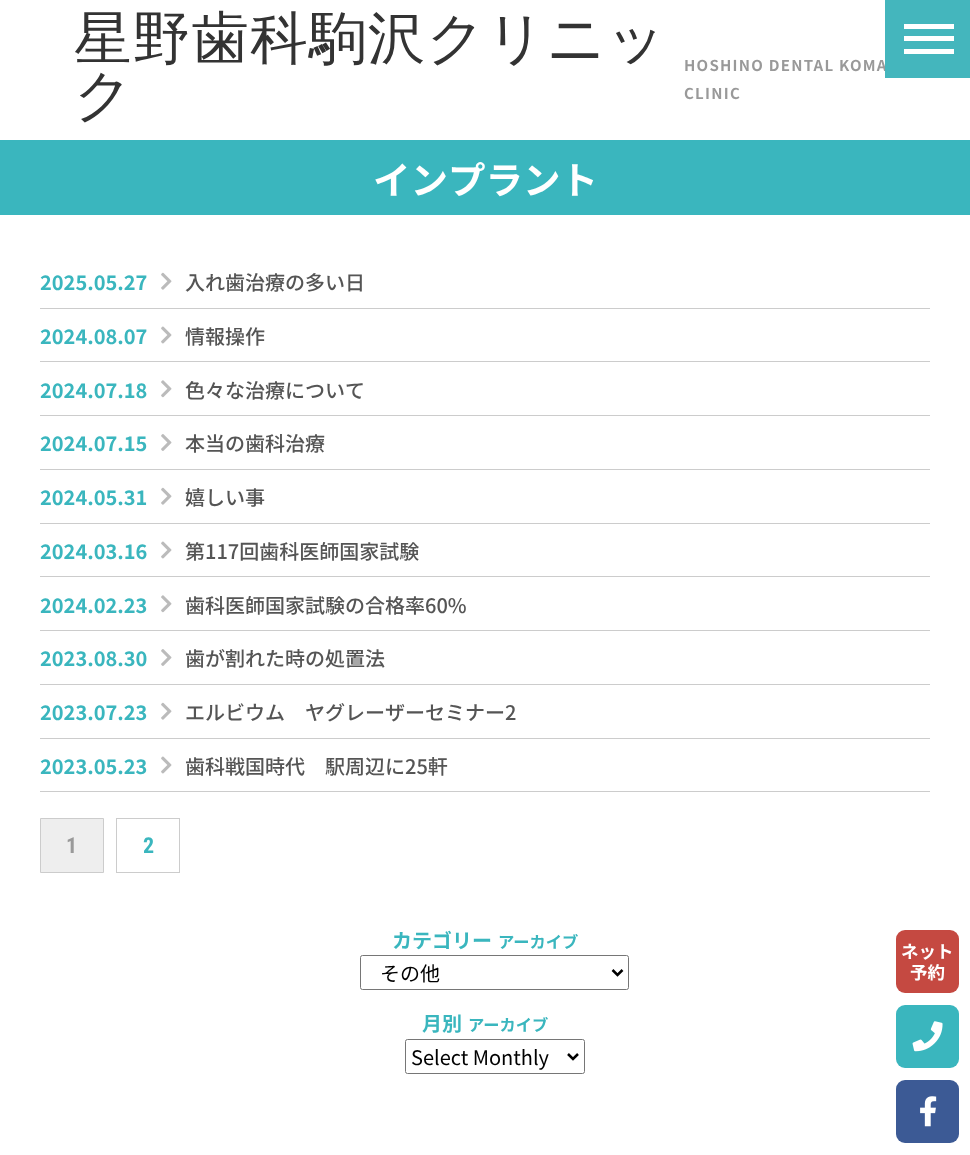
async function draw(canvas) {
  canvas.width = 970
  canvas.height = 1155
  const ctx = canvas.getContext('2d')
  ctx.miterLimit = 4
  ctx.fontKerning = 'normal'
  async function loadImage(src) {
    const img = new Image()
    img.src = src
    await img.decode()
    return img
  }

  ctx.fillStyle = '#fff'
  ctx.fillRect(0, 0, 970, 1155)
  ctx.letterSpacing = '1.25px'
  ctx.font = 'bold 15px Noto Sans JP'
  ctx.fillStyle = '#999'
  ctx.fillText('HOSHINO DENTAL KOMA', 684, 71)
  ctx.fillStyle = '#44b6bd'
  ctx.fillRect(885, 0, 85, 78)
  ctx.fillStyle = '#fff'
  ctx.fillRect(904, 49, 50, 5)
  ctx.fillRect(904, 24, 50, 5)
  ctx.fillRect(904, 36, 50, 5)
  ctx.font = '57.5px Noto Sans'
  ctx.fillStyle = '#333'
  ctx.fillText('星野歯科駒沢クリニッ', 74, 58)
  ctx.fillText('ク', 74, 115)
  ctx.font = 'bold 15px Noto Sans JP'
  ctx.fillStyle = '#999'
  ctx.fillText('CLINIC', 684, 99)
  ctx.fillStyle = '#3ab6be'
  ctx.fillRect(0, 140, 970, 75)
  ctx.letterSpacing = '0px'
  ctx.font = 'bold 37.5px Noto Sans JP'
  ctx.fillStyle = '#fff'
  ctx.fillText('インプラント', 373, 194)
  ctx.fillStyle = '#ccc'
  ctx.fillRect(40, 308, 890, 1)
  ctx.font = 'bold 20px Noto Sans JP'
  ctx.fillStyle = '#3ab6be'
  ctx.fillText('2025.05.27', 40, 290)
  ctx.drawImage(await loadImage('image0.png'), 161, 272, 11, 18)
  ctx.font = '500 20px Noto Sans JP'
  ctx.fillStyle = '#555'
  ctx.fillText('入れ歯治療の多い日', 185, 290)
  ctx.fillStyle = '#ccc'
  ctx.fillRect(40, 361, 890, 1)
  ctx.font = 'bold 20px Noto Sans JP'
  ctx.fillStyle = '#3ab6be'
  ctx.fillText('2024.08.07', 40, 344)
  ctx.drawImage(await loadImage('image1.png'), 161, 326, 11, 18)
  ctx.font = '500 20px Noto Sans JP'
  ctx.fillStyle = '#555'
  ctx.fillText('情報操作', 185, 344)
  ctx.fillStyle = '#ccc'
  ctx.fillRect(40, 415, 890, 1)
  ctx.font = 'bold 20px Noto Sans JP'
  ctx.fillStyle = '#3ab6be'
  ctx.fillText('2024.07.18', 40, 398)
  ctx.drawImage(await loadImage('image2.png'), 161, 380, 11, 18)
  ctx.font = '500 20px Noto Sans JP'
  ctx.fillStyle = '#555'
  ctx.fillText('色々な治療について', 185, 398)
  ctx.fillStyle = '#ccc'
  ctx.fillRect(40, 469, 890, 1)
  ctx.font = 'bold 20px Noto Sans JP'
  ctx.fillStyle = '#3ab6be'
  ctx.fillText('2024.07.15', 40, 451)
  ctx.drawImage(await loadImage('image3.png'), 161, 434, 11, 17)
  ctx.font = '500 20px Noto Sans JP'
  ctx.fillStyle = '#555'
  ctx.fillText('本当の歯科治療', 185, 451)
  ctx.fillStyle = '#ccc'
  ctx.fillRect(40, 523, 890, 1)
  ctx.font = 'bold 20px Noto Sans JP'
  ctx.fillStyle = '#3ab6be'
  ctx.fillText('2024.05.31', 40, 505)
  ctx.drawImage(await loadImage('image0.png'), 161, 487, 11, 18)
  ctx.font = '500 20px Noto Sans JP'
  ctx.fillStyle = '#555'
  ctx.fillText('嬉しい事', 185, 505)
  ctx.fillStyle = '#ccc'
  ctx.fillRect(40, 576, 890, 1)
  ctx.font = 'bold 20px Noto Sans JP'
  ctx.fillStyle = '#3ab6be'
  ctx.fillText('2024.03.16', 40, 559)
  ctx.drawImage(await loadImage('image1.png'), 161, 541, 11, 18)
  ctx.font = '500 20px Noto Sans JP'
  ctx.fillStyle = '#555'
  ctx.fillText('第117回歯科医師国家試験', 185, 559)
  ctx.fillStyle = '#ccc'
  ctx.fillRect(40, 630, 890, 1)
  ctx.font = 'bold 20px Noto Sans JP'
  ctx.fillStyle = '#3ab6be'
  ctx.fillText('2024.02.23', 40, 613)
  ctx.drawImage(await loadImage('image2.png'), 161, 595, 11, 18)
  ctx.font = '500 20px Noto Sans JP'
  ctx.fillStyle = '#555'
  ctx.fillText('歯科医師国家試験の合格率60%', 185, 613)
  ctx.fillStyle = '#ccc'
  ctx.fillRect(40, 684, 890, 1)
  ctx.font = 'bold 20px Noto Sans JP'
  ctx.fillStyle = '#3ab6be'
  ctx.fillText('2023.08.30', 40, 666)
  ctx.drawImage(await loadImage('image3.png'), 161, 649, 11, 17)
  ctx.font = '500 20px Noto Sans JP'
  ctx.fillStyle = '#555'
  ctx.fillText('歯が割れた時の処置法', 185, 666)
  ctx.fillStyle = '#ccc'
  ctx.fillRect(40, 738, 890, 1)
  ctx.font = 'bold 20px Noto Sans JP'
  ctx.fillStyle = '#3ab6be'
  ctx.fillText('2023.07.23', 40, 720)
  ctx.drawImage(await loadImage('image0.png'), 161, 702, 11, 18)
  ctx.font = '500 20px Noto Sans JP'
  ctx.fillStyle = '#555'
  ctx.fillText('エルビウム　ヤグレーザーセミナー2', 185, 720)
  ctx.fillStyle = '#ccc'
  ctx.fillRect(40, 791, 890, 1)
  ctx.font = 'bold 20px Noto Sans JP'
  ctx.fillStyle = '#3ab6be'
  ctx.fillText('2023.05.23', 40, 774)
  ctx.drawImage(await loadImage('image1.png'), 161, 756, 11, 18)
  ctx.font = '500 20px Noto Sans JP'
  ctx.fillStyle = '#555'
  ctx.fillText('歯科戦国時代　駅周辺に25軒', 185, 774)
  ctx.fillStyle = '#eee'
  ctx.beginPath()
  ctx.rect(40.5, 818.5, 63, 54)
  ctx.fill()
  ctx.strokeStyle = '#ccc'
  ctx.stroke()
  ctx.font = 'bold 22px Roboto Condensed'
  ctx.fillStyle = '#999'
  ctx.fillText('1', 66, 853)
  ctx.strokeRect(116.5, 818.5, 63, 54)
  ctx.fillStyle = '#3ab6be'
  ctx.fillText('2', 143, 853)
  ctx.font = 'bold 20px Noto Sans JP'
  ctx.fillText('カテゴリー', 392, 948)
  ctx.font = 'bold 16.25px Noto Sans JP'
  ctx.fillText('アーカイブ', 498, 948)
  ctx.beginPath()
  ctx.roundRect(360.5, 955.5, 268, 34, 2)
  ctx.strokeStyle = '#767676'
  ctx.stroke()
  ctx.beginPath()
  ctx.moveTo(612.5, 970)
  ctx.lineTo(617.5, 975)
  ctx.lineTo(622.5, 970)
  ctx.strokeStyle = '#000'
  ctx.lineWidth = 2.5
  ctx.stroke()
  ctx.font = '20px Noto Sans JP'
  ctx.fillStyle = '#000'
  ctx.fillText('その他', 380, 981)
  ctx.font = 'bold 20px Noto Sans JP'
  ctx.fillStyle = '#3ab6be'
  ctx.fillText('月別', 422, 1031)
  ctx.font = 'bold 16.25px Noto Sans JP'
  ctx.fillText('アーカイブ', 468, 1031)
  ctx.beginPath()
  ctx.roundRect(405.5, 1039.5, 179, 34, 2)
  ctx.strokeStyle = '#767676'
  ctx.lineWidth = 1
  ctx.stroke()
  ctx.beginPath()
  ctx.moveTo(568, 1054)
  ctx.lineTo(573, 1059)
  ctx.lineTo(578, 1054)
  ctx.strokeStyle = '#000'
  ctx.lineWidth = 2.5
  ctx.stroke()
  ctx.font = '20px Noto Sans JP'
  ctx.fillStyle = '#000'
  ctx.fillText('Select Monthly', 411, 1065)
  ctx.fillStyle = '#c54941'
  ctx.beginPath()
  ctx.roundRect(896, 930, 63, 63, 9)
  ctx.fill()
  ctx.font = 'bold 17.5px Noto Sans JP'
  ctx.fillStyle = '#fff'
  ctx.fillText('ネット', 901, 958)
  ctx.fillText('予約', 910, 979)
  ctx.fillStyle = '#3ab6be'
  ctx.beginPath()
  ctx.roundRect(896, 1005, 63, 63, 9)
  ctx.fill()
  ctx.drawImage(await loadImage('image4.png'), 912, 1021, 31, 31)
  ctx.fillStyle = '#3c5a95'
  ctx.beginPath()
  ctx.roundRect(896, 1080, 63, 63, 9)
  ctx.fill()
  ctx.drawImage(await loadImage('image5.png'), 920, 1096, 17, 31)
}

draw(document.querySelector('canvas'))
